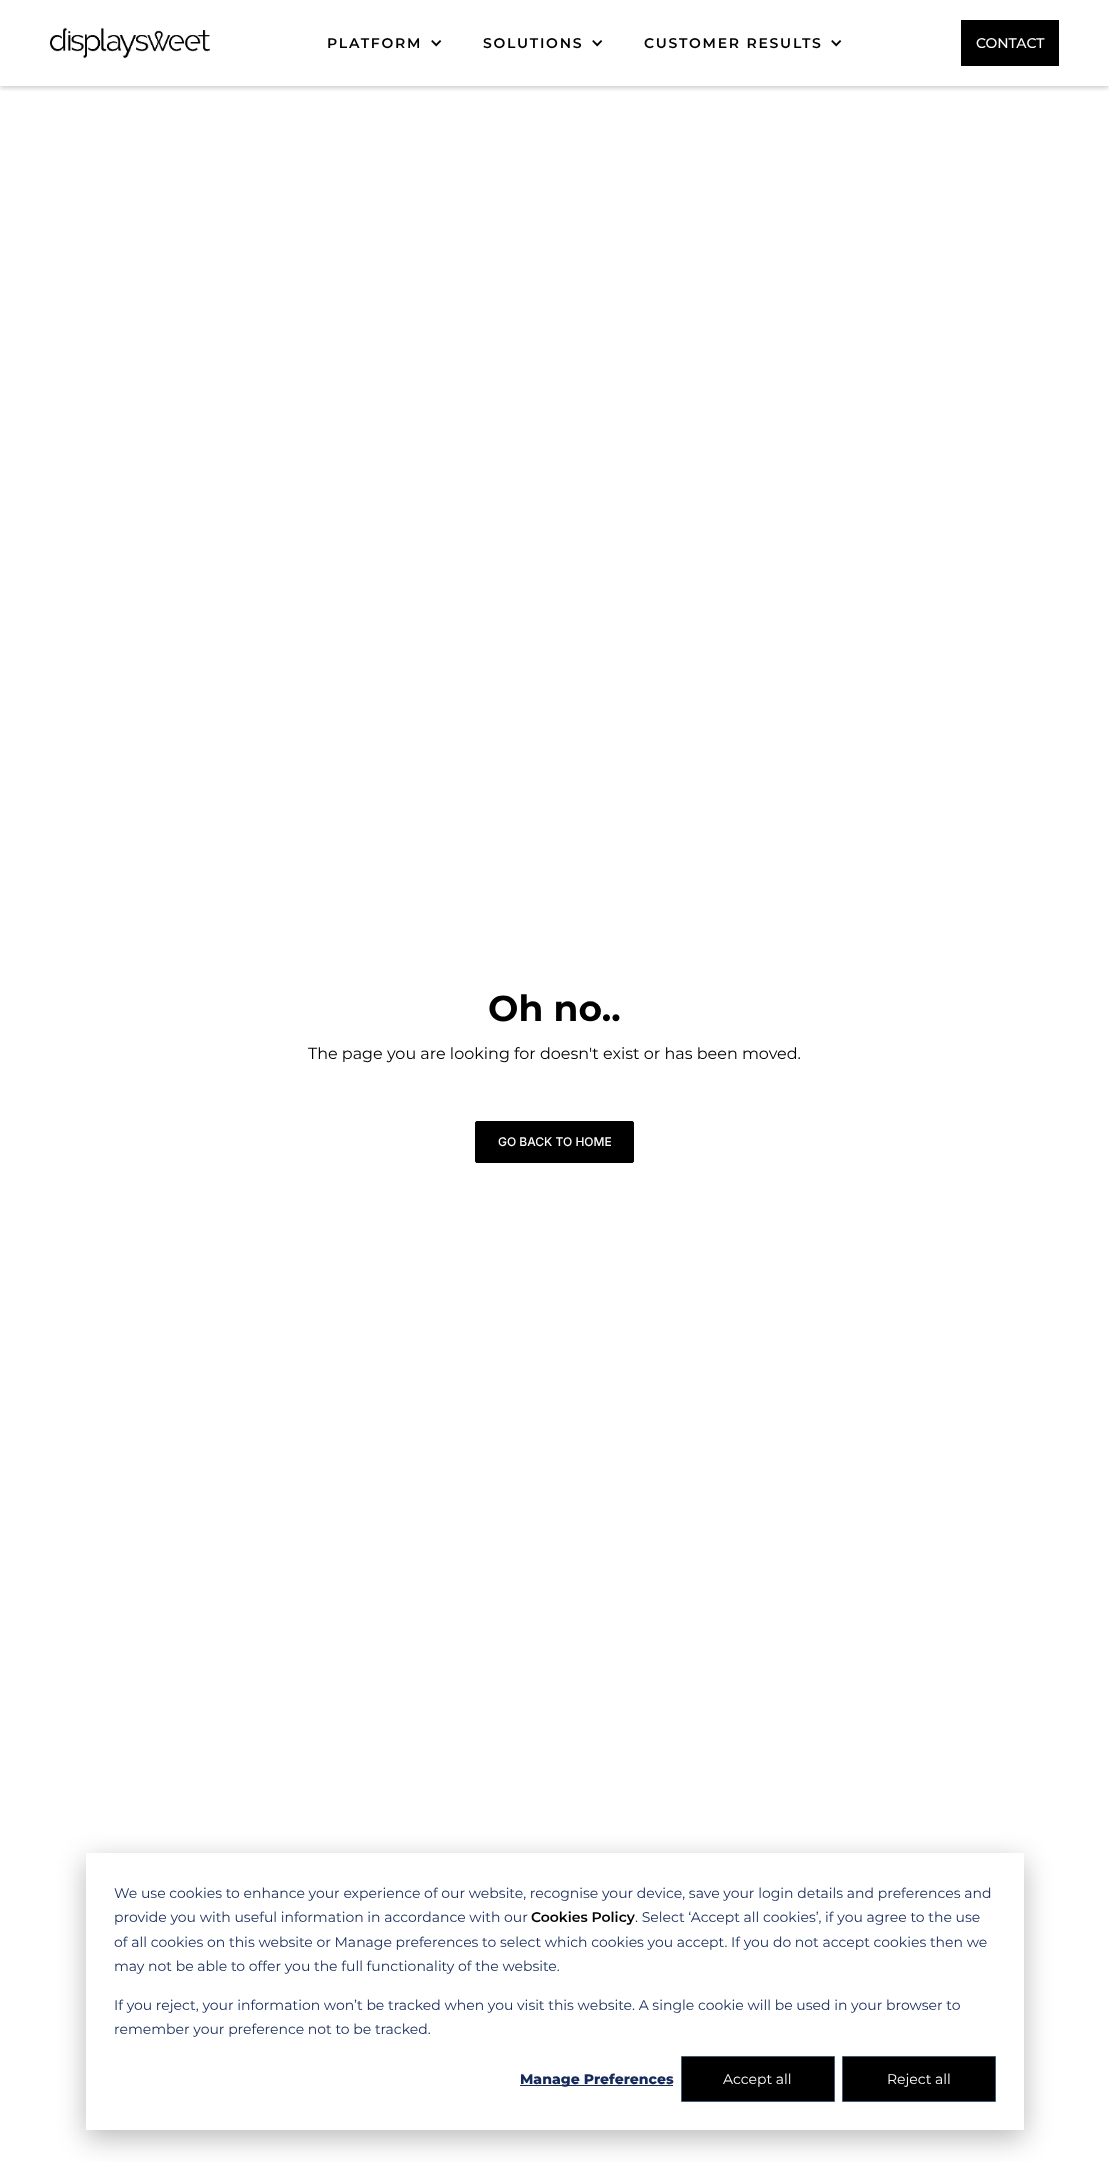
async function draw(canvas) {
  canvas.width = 1109
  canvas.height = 2162
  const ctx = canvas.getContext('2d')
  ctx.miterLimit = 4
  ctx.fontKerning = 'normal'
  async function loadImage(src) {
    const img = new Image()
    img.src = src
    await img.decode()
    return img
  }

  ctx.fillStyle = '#fff'
  ctx.fillRect(0, 0, 1109, 2162)
  ctx.save()
  ctx.beginPath()
  ctx.rect(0, 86, 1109, 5)
  ctx.clip()
  ctx.fillStyle = '#00000033'
  ctx.filter = 'blur(2.5px)'
  ctx.beginPath()
  ctx.rect(0, 2, 1109, 86)
  ctx.fill()
  ctx.filter = 'none'
  ctx.restore()
  ctx.drawImage(await loadImage('image0.png'), 50, 27, 160, 32)
  ctx.letterSpacing = '1.75px'
  ctx.font = '600 14px Montserrat'
  ctx.fillStyle = '#000'
  ctx.fillText('PLATFORM', 327, 48)
  ctx.drawImage(await loadImage('image1.png'), 431, 40, 11, 7)
  ctx.fillText('SOLUTIONS', 483, 48)
  ctx.drawImage(await loadImage('image1.png'), 592, 40, 11, 7)
  ctx.fillText('CUSTOMER RESULTS', 644, 48)
  ctx.drawImage(await loadImage('image1.png'), 831, 40, 11, 7)
  ctx.fillRect(961, 20, 98, 46)
  ctx.letterSpacing = '0px'
  ctx.font = '500 14px Montserrat'
  ctx.fillStyle = '#fff'
  ctx.fillText('CONTACT', 976, 48)
  ctx.font = 'bold 36px Montserrat'
  ctx.fillStyle = '#000'
  ctx.fillText('Oh no..', 488, 1021)
  ctx.font = '16px Montserrat'
  ctx.fillText('The page you are looking for doesn\'t exist or has been moved.', 308, 1059)
  ctx.beginPath()
  ctx.roundRect(475.5, 1121.5, 158, 41, 1.5)
  ctx.fill()
  ctx.strokeStyle = '#000'
  ctx.stroke()
  ctx.font = '500 12px Inter'
  ctx.fillStyle = '#fff'
  ctx.fillText('GO BACK TO HOME', 498, 1146)
  ctx.save()
  ctx.beginPath()
  ctx.moveTo(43, 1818)
  ctx.lineTo(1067, 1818)
  ctx.lineTo(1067, 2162)
  ctx.lineTo(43, 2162)
  ctx.closePath()
  ctx.moveTo(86, 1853)
  ctx.lineTo(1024, 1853)
  ctx.lineTo(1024, 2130)
  ctx.lineTo(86, 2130)
  ctx.closePath()
  ctx.clip('evenodd')
  ctx.fillStyle = '#00000047'
  ctx.filter = 'blur(14px)'
  ctx.beginPath()
  ctx.rect(86, 1861, 938, 277)
  ctx.fill()
  ctx.filter = 'none'
  ctx.restore()
  ctx.font = '14px Montserrat'
  ctx.fillStyle = '#15295a'
  ctx.fillText('We use cookies to enhance your experience of our website, recognise your device, save your login details and preferences and', 114, 1898)
  ctx.fillText('provide you with useful information in accordance with our', 114, 1922)
  ctx.font = '600 14px Montserrat'
  ctx.fillStyle = '#000'
  ctx.fillText('Cookies Policy', 531, 1922)
  ctx.font = '14px Montserrat'
  ctx.fillStyle = '#15295a'
  ctx.fillText('. Select ‘Accept all cookies’, if you agree to the use', 635, 1922)
  ctx.fillText('of all cookies on this website or Manage preferences to select which cookies you accept. If you do not accept cookies then we', 114, 1947)
  ctx.fillText('may not be able to offer you the full functionality of the website.', 114, 1971)
  ctx.fillText('If you reject, your information won’t be tracked when you visit this website. A single cookie will be used in your browser to', 114, 2010)
  ctx.fillText('remember your preference not to be tracked.', 114, 2034)
  ctx.fillRect(520, 2085, 153, 1)
  ctx.font = '800 14px Montserrat'
  ctx.fillText('Manage Preferences', 520, 2084)
  ctx.fillStyle = '#000'
  ctx.beginPath()
  ctx.rect(681.5, 2056.5, 153, 45)
  ctx.fill()
  ctx.strokeStyle = '#425b76'
  ctx.stroke()
  ctx.font = '14px Montserrat'
  ctx.fillStyle = '#fff'
  ctx.fillText('Accept all', 723, 2084)
  ctx.fillStyle = '#000'
  ctx.beginPath()
  ctx.rect(842.5, 2056.5, 153, 45)
  ctx.fill()
  ctx.stroke()
  ctx.fillStyle = '#fff'
  ctx.fillText('Reject all', 887, 2084)
}

draw(document.querySelector('canvas'))
